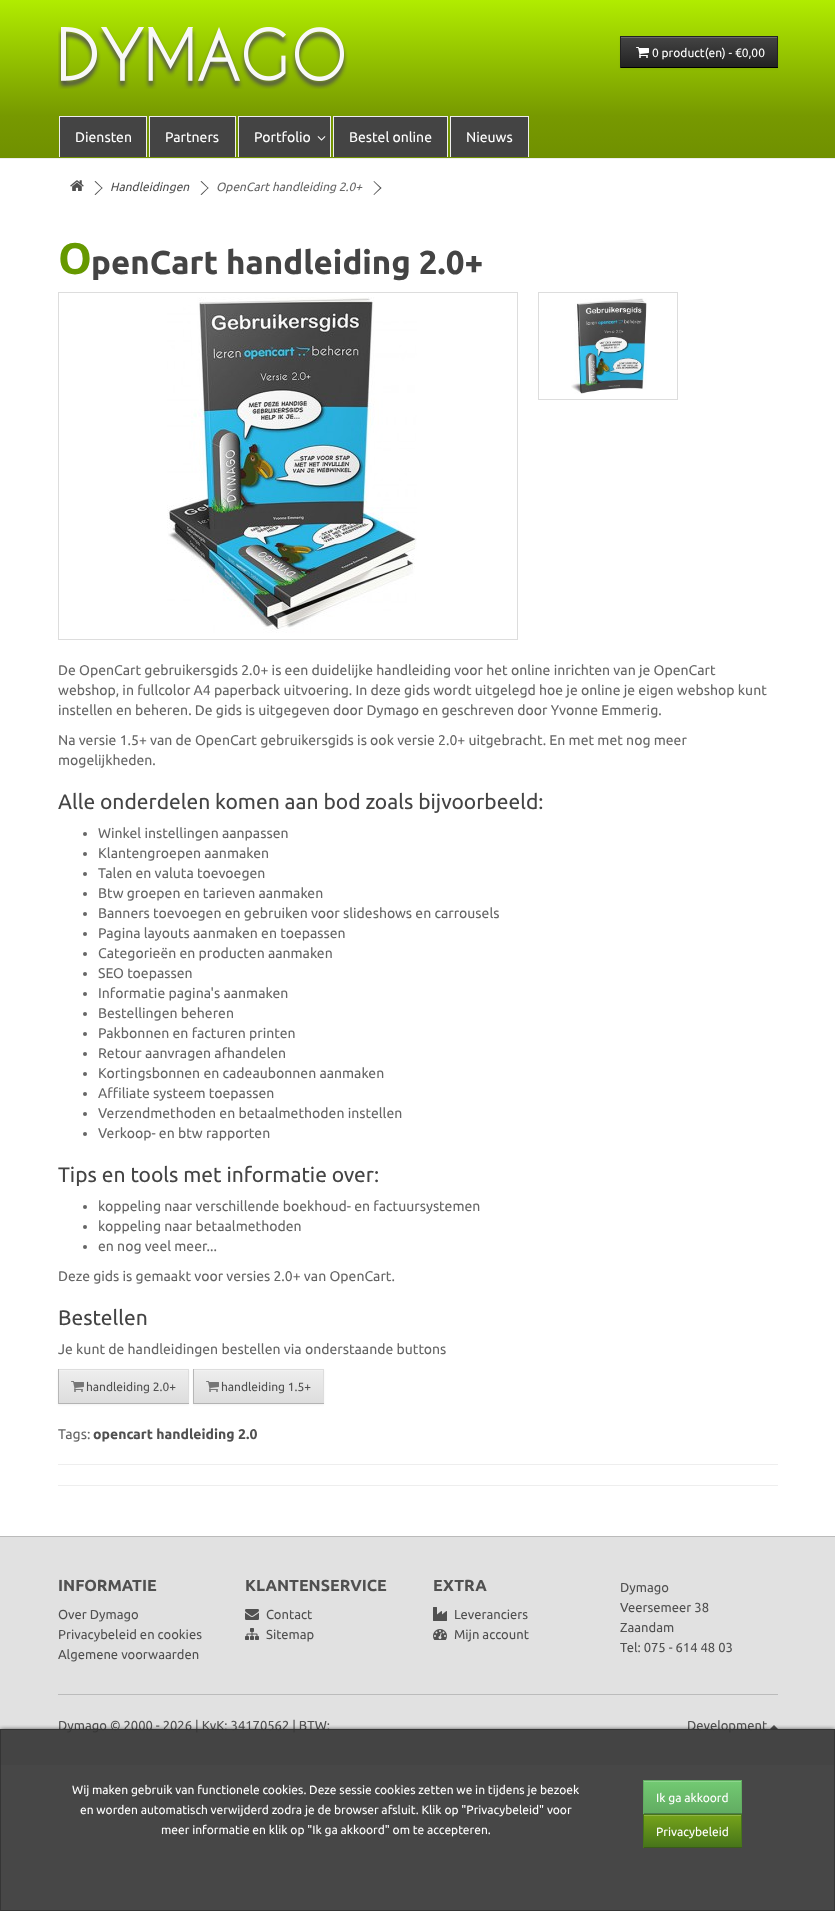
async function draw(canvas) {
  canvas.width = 835
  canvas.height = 1911
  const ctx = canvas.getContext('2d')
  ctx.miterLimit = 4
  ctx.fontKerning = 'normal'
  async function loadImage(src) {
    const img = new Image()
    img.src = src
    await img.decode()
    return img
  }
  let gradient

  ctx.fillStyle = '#fff'
  ctx.fillRect(0, 0, 835, 1911)
  gradient = ctx.createLinearGradient(418, 0, 418, 116)
  gradient.addColorStop(0, '#b1ec00')
  gradient.addColorStop(1, '#790')
  ctx.fillStyle = gradient
  ctx.fillRect(0, 0, 835, 116)
  ctx.drawImage(await loadImage('image0.png'), 58, 27, 290, 62)
  ctx.fillStyle = '#0000000d'
  ctx.filter = 'blur(1px)'
  ctx.beginPath()
  ctx.rect(620, 37, 158, 32)
  ctx.fill()
  ctx.filter = 'none'
  gradient = ctx.createLinearGradient(699, 37, 699, 67)
  gradient.addColorStop(0, '#444')
  gradient.addColorStop(1, '#222')
  ctx.fillStyle = gradient
  ctx.fillRect(621, 38, 156, 29)
  ctx.fillStyle = '#696969'
  ctx.fillRect(621, 37, 156, 1)
  ctx.fillStyle = '#222'
  ctx.fillRect(620, 36, 158, 1)
  ctx.fillRect(777, 36, 1, 32)
  ctx.fillStyle = '#000'
  ctx.fillRect(620, 67, 158, 1)
  ctx.fillStyle = '#222'
  ctx.fillRect(620, 36, 1, 32)
  ctx.drawImage(await loadImage('image1.png'), 636, 47, 13, 11)
  ctx.font = '12px Ubuntu'
  ctx.fillStyle = '#fff'
  ctx.fillText('0 product(en) - €0,00', 652, 57)
  gradient = ctx.createLinearGradient(418, 116, 418, 158)
  gradient.addColorStop(0, '#790')
  gradient.addColorStop(1, '#709000')
  ctx.fillStyle = gradient
  ctx.fillRect(0, 116, 835, 42)
  ctx.fillStyle = '#eee'
  ctx.fillRect(0, 158, 835, 1)
  ctx.fillStyle = '#444'
  ctx.fillRect(60, 117, 86, 40)
  ctx.fillStyle = '#eee'
  ctx.fillRect(59, 116, 88, 1)
  ctx.fillRect(146, 116, 1, 41)
  ctx.fillRect(59, 116, 1, 41)
  ctx.font = '14px Ubuntu'
  ctx.fillStyle = '#fff'
  ctx.fillText('Diensten', 75, 142)
  ctx.fillStyle = '#444'
  ctx.fillRect(150, 117, 85, 40)
  ctx.fillStyle = '#eee'
  ctx.fillRect(149, 116, 87, 1)
  ctx.fillRect(235, 116, 1, 41)
  ctx.fillRect(149, 116, 1, 41)
  ctx.fillStyle = '#fff'
  ctx.fillText('Partners', 165, 142)
  ctx.fillStyle = '#444'
  ctx.fillRect(239, 117, 91, 40)
  ctx.fillStyle = '#eee'
  ctx.fillRect(238, 116, 93, 1)
  ctx.fillRect(330, 116, 1, 41)
  ctx.fillRect(238, 116, 1, 41)
  ctx.fillStyle = '#fff'
  ctx.fillText('Portfolio', 254, 142)
  ctx.drawImage(await loadImage('image2.png'), 317, 136, 9, 5)
  ctx.fillStyle = '#444'
  ctx.fillRect(334, 117, 113, 40)
  ctx.fillStyle = '#eee'
  ctx.fillRect(333, 116, 115, 1)
  ctx.fillRect(447, 116, 1, 41)
  ctx.fillRect(333, 116, 1, 41)
  ctx.fillStyle = '#fff'
  ctx.fillText('Bestel online', 349, 142)
  ctx.fillStyle = '#444'
  ctx.fillRect(451, 117, 77, 40)
  ctx.fillStyle = '#eee'
  ctx.fillRect(450, 116, 79, 1)
  ctx.fillRect(528, 116, 1, 41)
  ctx.fillRect(450, 116, 1, 41)
  ctx.fillStyle = '#fff'
  ctx.fillText('Nieuws', 466, 142)
  ctx.drawImage(await loadImage('image3.png'), 70, 180, 14, 11)
  ctx.fillStyle = '#505050'
  ctx.beginPath()
  ctx.moveTo(94.5, 181.5)
  ctx.lineTo(95.5, 181)
  ctx.lineTo(102.5, 188)
  ctx.lineTo(102, 188.5)
  ctx.closePath()
  ctx.fill()
  ctx.beginPath()
  ctx.moveTo(94.5, 194.5)
  ctx.lineTo(102, 187.5)
  ctx.lineTo(102.5, 188)
  ctx.lineTo(95.5, 195)
  ctx.closePath()
  ctx.fill()
  ctx.font = 'italic 12px Ubuntu'
  ctx.fillText('Handleidingen', 110, 191)
  ctx.beginPath()
  ctx.moveTo(200.5, 181.5)
  ctx.lineTo(201.5, 181)
  ctx.lineTo(208.5, 188)
  ctx.lineTo(208, 188.5)
  ctx.closePath()
  ctx.fill()
  ctx.beginPath()
  ctx.moveTo(200.5, 194.5)
  ctx.lineTo(208, 187.5)
  ctx.lineTo(208.5, 188)
  ctx.lineTo(201.5, 195)
  ctx.closePath()
  ctx.fill()
  ctx.fillStyle = '#666'
  ctx.fillText('OpenCart handleiding 2.0+', 216, 191)
  ctx.fillStyle = '#505050'
  ctx.beginPath()
  ctx.moveTo(373.5, 181.5)
  ctx.lineTo(374, 181)
  ctx.lineTo(381.5, 188)
  ctx.lineTo(380.5, 188.5)
  ctx.closePath()
  ctx.fill()
  ctx.beginPath()
  ctx.moveTo(373.5, 194.5)
  ctx.lineTo(380.5, 187.5)
  ctx.lineTo(381.5, 188)
  ctx.lineTo(374, 195)
  ctx.closePath()
  ctx.fill()
  ctx.font = 'bold 43px Noto Sans'
  ctx.fillStyle = '#690'
  ctx.fillText('O', 58, 274)
  ctx.font = 'bold 33px Ubuntu'
  ctx.fillStyle = '#444'
  ctx.fillText('penCart handleiding 2.0+', 91, 274)
  ctx.strokeStyle = '#ddd'
  ctx.strokeRect(58.5, 292.5, 459, 347)
  ctx.drawImage(await loadImage('image4.png'), 167, 297, 250, 336)
  ctx.strokeRect(538.5, 292.5, 139, 107)
  ctx.drawImage(await loadImage('image5.png'), 571, 298, 76, 96)
  ctx.font = '14px Ubuntu'
  ctx.fillStyle = '#666'
  ctx.fillText('De OpenCart gebruikersgids 2.0+ is een duidelijke handleiding voor het online inrichten van je OpenCart', 58, 675)
  ctx.fillText('webshop, in fullcolor A4 paperback uitvoering. In deze gids wordt uitgelegd hoe je online je eigen webshop kunt', 58, 695)
  ctx.fillText('instellen en beheren. De gids is uitgegeven door Dymago en geschreven door Yvonne Emmerig.', 58, 715)
  ctx.fillText('Na versie 1.5+ van de OpenCart gebruikersgids is ook versie 2.0+ uitgebracht. En met met nog meer', 58, 745)
  ctx.fillText('mogelijkheden.', 58, 765)
  ctx.font = '21px Ubuntu'
  ctx.fillStyle = '#444'
  ctx.fillText('Alle onderdelen komen aan bod zoals bijvoorbeeld:', 58, 809)
  ctx.fillStyle = '#666'
  ctx.beginPath()
  ctx.arc(85, 834, 2, 0, 2 * Math.PI)
  ctx.fill()
  ctx.font = '14px Ubuntu'
  ctx.fillText('Winkel instellingen aanpassen', 98, 838)
  ctx.beginPath()
  ctx.arc(85, 854, 2, 0, 2 * Math.PI)
  ctx.fill()
  ctx.fillText('Klantengroepen aanmaken', 98, 858)
  ctx.beginPath()
  ctx.arc(85, 874, 2, 0, 2 * Math.PI)
  ctx.fill()
  ctx.fillText('Talen en valuta toevoegen', 98, 878)
  ctx.beginPath()
  ctx.arc(85, 894, 2, 0, 2 * Math.PI)
  ctx.fill()
  ctx.fillText('Btw groepen en tarieven aanmaken', 98, 898)
  ctx.beginPath()
  ctx.arc(85, 914, 2, 0, 2 * Math.PI)
  ctx.fill()
  ctx.fillText('Banners toevoegen en gebruiken voor slideshows en carrousels', 98, 918)
  ctx.beginPath()
  ctx.arc(85, 934, 2, 0, 2 * Math.PI)
  ctx.fill()
  ctx.fillText('Pagina layouts aanmaken en toepassen', 98, 938)
  ctx.beginPath()
  ctx.arc(85, 954, 2, 0, 2 * Math.PI)
  ctx.fill()
  ctx.fillText('Categorieën en producten aanmaken', 98, 958)
  ctx.beginPath()
  ctx.arc(85, 974, 2, 0, 2 * Math.PI)
  ctx.fill()
  ctx.fillText('SEO toepassen', 98, 978)
  ctx.beginPath()
  ctx.arc(85, 994, 2, 0, 2 * Math.PI)
  ctx.fill()
  ctx.fillText('Informatie pagina\'s aanmaken', 98, 998)
  ctx.beginPath()
  ctx.arc(85, 1014, 2, 0, 2 * Math.PI)
  ctx.fill()
  ctx.fillText('Bestellingen beheren', 98, 1018)
  ctx.beginPath()
  ctx.arc(85, 1034, 2, 0, 2 * Math.PI)
  ctx.fill()
  ctx.fillText('Pakbonnen en facturen printen', 98, 1038)
  ctx.beginPath()
  ctx.arc(85, 1054, 2, 0, 2 * Math.PI)
  ctx.fill()
  ctx.fillText('Retour aanvragen afhandelen', 98, 1058)
  ctx.beginPath()
  ctx.arc(85, 1074, 2, 0, 2 * Math.PI)
  ctx.fill()
  ctx.fillText('Kortingsbonnen en cadeaubonnen aanmaken', 98, 1078)
  ctx.beginPath()
  ctx.arc(85, 1094, 2, 0, 2 * Math.PI)
  ctx.fill()
  ctx.fillText('Affiliate systeem toepassen', 98, 1098)
  ctx.beginPath()
  ctx.arc(85, 1114, 2, 0, 2 * Math.PI)
  ctx.fill()
  ctx.fillText('Verzendmethoden en betaalmethoden instellen', 98, 1118)
  ctx.beginPath()
  ctx.arc(85, 1134, 2, 0, 2 * Math.PI)
  ctx.fill()
  ctx.fillText('Verkoop- en btw rapporten', 98, 1138)
  ctx.font = '21px Ubuntu'
  ctx.fillStyle = '#444'
  ctx.fillText('Tips en tools met informatie over:', 58, 1182)
  ctx.fillStyle = '#666'
  ctx.beginPath()
  ctx.arc(85, 1207, 2, 0, 2 * Math.PI)
  ctx.fill()
  ctx.font = '14px Ubuntu'
  ctx.fillText('koppeling naar verschillende boekhoud- en factuursystemen', 98, 1211)
  ctx.beginPath()
  ctx.arc(85, 1227, 2, 0, 2 * Math.PI)
  ctx.fill()
  ctx.fillText('koppeling naar betaalmethoden', 98, 1231)
  ctx.beginPath()
  ctx.arc(85, 1247, 2, 0, 2 * Math.PI)
  ctx.fill()
  ctx.fillText('en nog veel meer...', 98, 1251)
  ctx.fillText('Deze gids is gemaakt voor versies 2.0+ van OpenCart.', 58, 1281)
  ctx.font = '21px Ubuntu'
  ctx.fillStyle = '#444'
  ctx.fillText('Bestellen', 58, 1325)
  ctx.font = '14px Ubuntu'
  ctx.fillStyle = '#666'
  ctx.fillText('Je kunt de handleidingen bestellen via onderstaande buttons', 58, 1354)
  ctx.fillStyle = '#0000000d'
  ctx.filter = 'blur(1px)'
  ctx.beginPath()
  ctx.rect(58, 1370, 131, 35)
  ctx.fill()
  ctx.filter = 'none'
  gradient = ctx.createLinearGradient(124, 1370, 124, 1403)
  gradient.addColorStop(0, '#eee')
  gradient.addColorStop(1, '#ddd')
  ctx.fillStyle = gradient
  ctx.fillRect(59, 1371, 129, 32)
  ctx.fillStyle = '#f1f1f1'
  ctx.fillRect(59, 1370, 129, 1)
  ctx.fillStyle = '#ddd'
  ctx.fillRect(58, 1369, 131, 1)
  ctx.fillRect(188, 1369, 1, 35)
  ctx.fillStyle = '#b3b3b3'
  ctx.fillRect(58, 1403, 131, 1)
  ctx.fillStyle = '#b7b7b7'
  ctx.fillRect(58, 1369, 1, 35)
  ctx.drawImage(await loadImage('image6.png'), 71, 1381, 13, 11)
  ctx.font = '12px Ubuntu'
  ctx.fillStyle = '#505050'
  ctx.fillText('handleiding 2.0+', 86, 1391)
  ctx.fillStyle = '#0000000d'
  ctx.filter = 'blur(1px)'
  ctx.beginPath()
  ctx.rect(193, 1370, 131, 35)
  ctx.fill()
  ctx.filter = 'none'
  gradient = ctx.createLinearGradient(259, 1370, 259, 1403)
  gradient.addColorStop(0, '#eee')
  gradient.addColorStop(1, '#ddd')
  ctx.fillStyle = gradient
  ctx.fillRect(194, 1371, 129, 32)
  ctx.fillStyle = '#f1f1f1'
  ctx.fillRect(194, 1370, 129, 1)
  ctx.fillStyle = '#ddd'
  ctx.fillRect(193, 1369, 131, 1)
  ctx.fillRect(323, 1369, 1, 35)
  ctx.fillStyle = '#b3b3b3'
  ctx.fillRect(193, 1403, 131, 1)
  ctx.fillStyle = '#b7b7b7'
  ctx.fillRect(193, 1369, 1, 35)
  ctx.drawImage(await loadImage('image6.png'), 206, 1381, 13, 11)
  ctx.fillStyle = '#505050'
  ctx.fillText('handleiding 1.5+', 221, 1391)
  ctx.font = '14px Ubuntu'
  ctx.fillStyle = '#666'
  ctx.fillText('Tags:', 58, 1439)
  ctx.font = 'bold 14px Ubuntu'
  ctx.fillStyle = '#505050'
  ctx.fillText('opencart handleiding 2.0', 93, 1439)
  ctx.fillStyle = '#eee'
  ctx.fillRect(58, 1464, 720, 1)
  ctx.fillRect(58, 1485, 720, 1)
  ctx.fillStyle = '#e1e1e1'
  ctx.fillRect(0, 1537, 835, 228)
  ctx.fillStyle = '#bbb'
  ctx.fillRect(0, 1536, 835, 1)
  ctx.font = 'bold 16px Ubuntu'
  ctx.fillStyle = '#505050'
  ctx.fillText('INFORMATIE', 58, 1591)
  ctx.font = '13px Ubuntu'
  ctx.fillText('Over Dymago', 58, 1619)
  ctx.fillText('Privacybeleid en cookies', 58, 1639)
  ctx.fillText('Algemene voorwaarden', 58, 1659)
  ctx.font = 'bold 16px Ubuntu'
  ctx.fillText('KLANTENSERVICE', 245, 1591)
  ctx.drawImage(await loadImage('image7.png'), 245, 1609, 14, 11)
  ctx.font = '13px Ubuntu'
  ctx.fillText('Contact', 266, 1619)
  ctx.drawImage(await loadImage('image8.png'), 245, 1628, 14, 12)
  ctx.fillText('Sitemap', 266, 1639)
  ctx.font = 'bold 16px Ubuntu'
  ctx.fillText('EXTRA', 433, 1591)
  ctx.drawImage(await loadImage('image9.png'), 433, 1607, 14, 14)
  ctx.font = '13px Ubuntu'
  ctx.fillText('Leveranciers', 454, 1619)
  ctx.drawImage(await loadImage('image10.png'), 433, 1629, 14, 11)
  ctx.fillText('Mijn account', 454, 1639)
  ctx.fillText('Dymago', 620, 1592)
  ctx.fillText('Veersemeer 38', 620, 1612)
  ctx.fillText('Zaandam', 620, 1632)
  ctx.fillText('Tel: 075 - 614 48 03', 620, 1652)
  ctx.fillStyle = '#bbb'
  ctx.fillRect(58, 1694, 720, 1)
  ctx.fillStyle = '#505050'
  ctx.fillText('Dymago © 2000 - 2026 | KvK: 34170562 | BTW:', 58, 1730)
  ctx.fillText('Development', 687, 1730)
  ctx.beginPath()
  ctx.moveTo(778, 1729)
  ctx.lineTo(770, 1729)
  ctx.lineTo(774, 1725)
  ctx.closePath()
  ctx.fill()
  ctx.save()
  ctx.beginPath()
  ctx.rect(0, 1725, 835, 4)
  ctx.clip()
  ctx.fillStyle = '#000000e6'
  ctx.filter = 'blur(2.5px)'
  ctx.beginPath()
  ctx.rect(0, 1730, 835, 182)
  ctx.fill()
  ctx.filter = 'none'
  ctx.restore()
  ctx.fillStyle = '#333333e6'
  ctx.fillRect(0, 1729, 835, 182)
  ctx.strokeStyle = '#333333e6'
  ctx.strokeRect(0.5, 1729.5, 834, 181)
  ctx.font = '12px Ubuntu'
  ctx.fillStyle = '#fff'
  ctx.fillText('Wij maken gebruik van functionele cookies. Deze sessie cookies zetten we in tijdens je bezoek', 72, 1794)
  ctx.fillText('en worden automatisch verwijderd zodra je de browser afsluit. Klik op "Privacybeleid" voor', 80, 1814)
  ctx.fillText('meer informatie en klik op "Ik ga akkoord" om te accepteren.', 161, 1834)
  gradient = ctx.createLinearGradient(693, 1781, 693, 1813)
  gradient.addColorStop(0, '#72ca72')
  gradient.addColorStop(1, '#62ac62')
  ctx.fillStyle = gradient
  ctx.fillRect(644, 1782, 97, 31)
  ctx.fillStyle = '#8ed58e'
  ctx.fillRect(644, 1781, 97, 1)
  ctx.fillStyle = '#62ac62'
  ctx.fillRect(643, 1780, 99, 1)
  ctx.fillRect(741, 1780, 1, 34)
  ctx.fillStyle = '#4c7e4c'
  ctx.fillRect(643, 1813, 99, 1)
  ctx.fillStyle = '#62ac62'
  ctx.fillRect(643, 1780, 1, 34)
  ctx.fillStyle = '#fff'
  ctx.fillText('Ik ga akkoord', 656, 1802)
  gradient = ctx.createLinearGradient(693, 1815, 693, 1847)
  gradient.addColorStop(0, '#75a31a')
  gradient.addColorStop(1, '#47751a')
  ctx.fillStyle = gradient
  ctx.fillRect(644, 1816, 97, 31)
  ctx.fillStyle = '#90b548'
  ctx.fillRect(644, 1815, 97, 1)
  ctx.fillStyle = '#47751a'
  ctx.fillRect(643, 1814, 99, 1)
  ctx.fillRect(741, 1814, 1, 34)
  ctx.fillStyle = '#3a5b1a'
  ctx.fillRect(643, 1847, 99, 1)
  ctx.fillStyle = '#47751a'
  ctx.fillRect(643, 1814, 1, 34)
  ctx.fillStyle = '#fff'
  ctx.fillText('Privacybeleid', 656, 1836)
}

draw(document.querySelector('canvas'))
